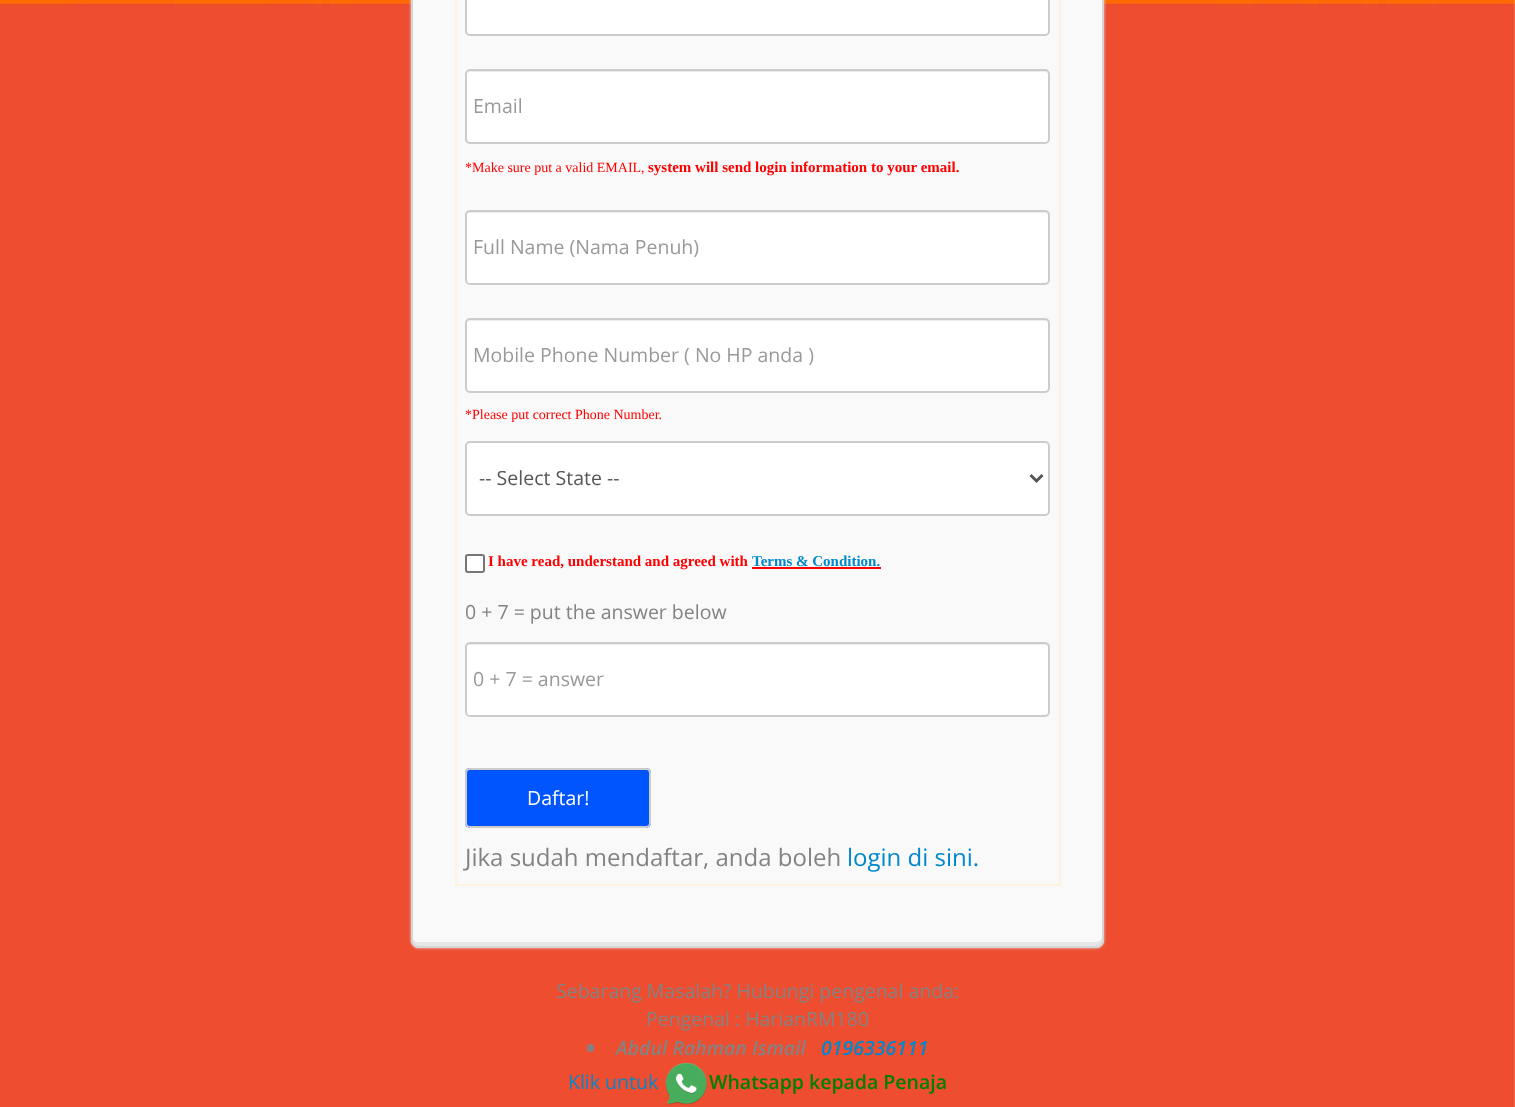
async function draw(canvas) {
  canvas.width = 1515
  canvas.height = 1107
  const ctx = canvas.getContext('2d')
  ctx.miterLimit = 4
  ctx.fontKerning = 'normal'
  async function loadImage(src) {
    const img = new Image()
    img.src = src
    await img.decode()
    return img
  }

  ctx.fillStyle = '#fff'
  ctx.fillRect(0, 0, 1515, 1107)
  ctx.drawImage(await loadImage('image0.png'), 0, 0, 1515, 1107)
  ctx.fillStyle = '#dadada'
  ctx.filter = 'blur(1.5px)'
  ctx.beginPath()
  ctx.roundRect(411, -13, 693, 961, 8)
  ctx.fill()
  ctx.filter = 'none'
  ctx.fillStyle = '#f9f9f9'
  ctx.beginPath()
  ctx.roundRect(411, -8, 693, 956, 8)
  ctx.fill()
  ctx.fillStyle = '#e6e6e6'
  ctx.beginPath()
  ctx.moveTo(413, 939)
  ctx.lineTo(413, 941)
  ctx.bezierCurveTo(413, 944, 416, 947, 419, 947)
  ctx.lineTo(1097, 947)
  ctx.bezierCurveTo(1100, 947, 1103, 944, 1103, 941)
  ctx.lineTo(1103, -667)
  ctx.bezierCurveTo(1103, -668, 1103, -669, 1102, -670)
  ctx.lineTo(1102, 936)
  ctx.bezierCurveTo(1102, 939, 1100, 942, 1096, 942)
  ctx.lineTo(418, 942)
  ctx.bezierCurveTo(416, 942, 414, 941, 413, 939)
  ctx.closePath()
  ctx.fill()
  ctx.beginPath()
  ctx.roundRect(412, -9, 691, 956, 7)
  ctx.strokeStyle = '#d5d5d5'
  ctx.lineWidth = 2
  ctx.stroke()
  ctx.fillStyle = '#fef3dd'
  ctx.fillRect(1059, 0, 2, 885)
  ctx.fillRect(455, 884, 606, 2)
  ctx.fillRect(455, 0, 2, 885)
  ctx.fillStyle = '#fff'
  ctx.beginPath()
  ctx.roundRect(466, -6, 583, 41, 4)
  ctx.fill()
  ctx.strokeStyle = '#ccc'
  ctx.stroke()
  ctx.beginPath()
  ctx.roundRect(465, 69, 585, 75, 5)
  ctx.fill()
  ctx.fillStyle = '#ececec'
  ctx.beginPath()
  ctx.moveTo(470, 72)
  ctx.lineTo(1046, 72)
  ctx.bezierCurveTo(1047, 72, 1048, 73, 1048, 75)
  ctx.lineTo(1048, 142)
  ctx.lineTo(1049, 140)
  ctx.lineTo(1049, 73)
  ctx.bezierCurveTo(1048, 72, 1047, 71, 1046, 71)
  ctx.lineTo(470, 71)
  ctx.bezierCurveTo(469, 71, 468, 72, 467, 73)
  ctx.closePath()
  ctx.fill()
  ctx.beginPath()
  ctx.roundRect(466, 70, 583, 73, 4)
  ctx.stroke()
  ctx.font = '19.5px Open Sans'
  ctx.fillStyle = '#999'
  ctx.fillText('Email', 473, 113)
  ctx.font = '14px Liberation Serif'
  ctx.fillStyle = '#f00'
  ctx.fillText('*Make sure put a valid EMAIL,', 465, 172)
  ctx.font = 'bold 15px Liberation Serif'
  ctx.fillText('system will send login information to your email.', 648, 172)
  ctx.fillStyle = '#fff'
  ctx.beginPath()
  ctx.roundRect(465, 210, 585, 75, 5)
  ctx.fill()
  ctx.fillStyle = '#ececec'
  ctx.beginPath()
  ctx.moveTo(470, 213)
  ctx.lineTo(1046, 213)
  ctx.bezierCurveTo(1047, 213, 1048, 214, 1048, 216)
  ctx.lineTo(1048, 283)
  ctx.lineTo(1049, 281)
  ctx.lineTo(1049, 214)
  ctx.bezierCurveTo(1048, 213, 1047, 212, 1046, 212)
  ctx.lineTo(470, 212)
  ctx.bezierCurveTo(469, 212, 468, 213, 467, 214)
  ctx.closePath()
  ctx.fill()
  ctx.beginPath()
  ctx.roundRect(466, 211, 583, 73, 4)
  ctx.stroke()
  ctx.font = '19.5px Open Sans'
  ctx.fillStyle = '#999'
  ctx.fillText('Full Name (Nama Penuh)', 473, 254)
  ctx.fillStyle = '#fff'
  ctx.beginPath()
  ctx.roundRect(465, 318, 585, 75, 5)
  ctx.fill()
  ctx.fillStyle = '#ececec'
  ctx.beginPath()
  ctx.moveTo(470, 321)
  ctx.lineTo(1046, 321)
  ctx.bezierCurveTo(1047, 321, 1048, 322, 1048, 324)
  ctx.lineTo(1048, 391)
  ctx.lineTo(1049, 389)
  ctx.lineTo(1049, 322)
  ctx.bezierCurveTo(1048, 321, 1047, 320, 1046, 320)
  ctx.lineTo(470, 320)
  ctx.bezierCurveTo(469, 320, 468, 321, 467, 322)
  ctx.closePath()
  ctx.fill()
  ctx.beginPath()
  ctx.roundRect(466, 319, 583, 73, 4)
  ctx.stroke()
  ctx.fillStyle = '#999'
  ctx.fillText('Mobile Phone Number ( No HP anda )', 473, 362)
  ctx.font = '14px Liberation Serif'
  ctx.fillStyle = '#f00'
  ctx.fillText('*Please put correct Phone Number.', 465, 419)
  ctx.fillStyle = '#fff'
  ctx.beginPath()
  ctx.roundRect(466, 442, 583, 73, 4)
  ctx.fill()
  ctx.stroke()
  ctx.beginPath()
  ctx.moveTo(1030.5, 475)
  ctx.lineTo(1036.5, 481)
  ctx.lineTo(1042.5, 475)
  ctx.strokeStyle = '#555'
  ctx.lineWidth = 3
  ctx.stroke()
  ctx.font = '19.5px Open Sans'
  ctx.fillStyle = '#555'
  ctx.fillText('-- Select State --', 479, 485)
  ctx.fillStyle = '#fff'
  ctx.beginPath()
  ctx.roundRect(466, 555, 18, 17, 2)
  ctx.fill()
  ctx.strokeStyle = '#767676'
  ctx.lineWidth = 2
  ctx.stroke()
  ctx.font = 'bold 15px Liberation Serif'
  ctx.fillStyle = '#f00'
  ctx.fillText('I have read, understand and agreed with', 488, 566)
  ctx.fillStyle = '#08c'
  ctx.fillText('Terms & Condition.', 752, 566)
  ctx.fillStyle = '#f00'
  ctx.fillRect(752, 567, 129, 2)
  ctx.font = '19.5px Open Sans'
  ctx.fillStyle = '#838383'
  ctx.fillText('0 + 7 = put the answer below', 465, 619)
  ctx.fillStyle = '#fff'
  ctx.beginPath()
  ctx.roundRect(465, 642, 585, 75, 5)
  ctx.fill()
  ctx.fillStyle = '#ececec'
  ctx.beginPath()
  ctx.moveTo(470, 645)
  ctx.lineTo(1046, 645)
  ctx.bezierCurveTo(1047, 645, 1048, 646, 1048, 648)
  ctx.lineTo(1048, 715)
  ctx.bezierCurveTo(1049, 715, 1049, 714, 1049, 713)
  ctx.lineTo(1049, 647)
  ctx.bezierCurveTo(1049, 645, 1048, 644, 1046, 644)
  ctx.lineTo(470, 644)
  ctx.bezierCurveTo(469, 644, 468, 645, 467, 646)
  ctx.closePath()
  ctx.fill()
  ctx.beginPath()
  ctx.roundRect(466, 643, 583, 73, 4)
  ctx.strokeStyle = '#ccc'
  ctx.stroke()
  ctx.fillStyle = '#999'
  ctx.fillText('0 + 7 = answer', 473, 686)
  ctx.fillStyle = '#05f'
  ctx.beginPath()
  ctx.roundRect(465, 768, 186, 60, 5)
  ctx.fill()
  ctx.fillStyle = '#004fec'
  ctx.beginPath()
  ctx.moveTo(470, 771)
  ctx.lineTo(646, 771)
  ctx.bezierCurveTo(648, 771, 650, 772, 650, 774)
  ctx.bezierCurveTo(650, 772, 650, 771, 648, 770)
  ctx.lineTo(470, 770)
  ctx.bezierCurveTo(469, 770, 468, 771, 467, 772)
  ctx.closePath()
  ctx.fill()
  ctx.beginPath()
  ctx.roundRect(466, 769, 184, 58, 4)
  ctx.stroke()
  ctx.fillStyle = '#fff'
  ctx.fillText('Daftar!', 527, 805)
  ctx.font = '24px Open Sans'
  ctx.fillStyle = '#838383'
  ctx.fillText('Jika sudah mendaftar, anda boleh', 465, 866)
  ctx.fillStyle = '#08c'
  ctx.fillText('login di sini.', 847, 866)
  ctx.font = '19.5px Open Sans'
  ctx.fillStyle = '#838383'
  ctx.fillText('Sebarang Masalah? Hubungi pengenal anda:', 556, 998)
  ctx.fillText('Pengenal : HarianRM180', 646, 1026)
  ctx.beginPath()
  ctx.roundRect(587, 1044, 7, 8, 3.5)
  ctx.fill()
  ctx.font = 'italic 600 19.5px Open Sans'
  ctx.fillText('Abdul Rahman Ismail', 616, 1055)
  ctx.fillStyle = '#08c'
  ctx.fillText('0196336111', 821, 1055)
  ctx.font = '19.5px Open Sans'
  ctx.fillText('Klik untuk', 568, 1089)
  ctx.drawImage(await loadImage('image1.png'), 666, 1063, 41, 42)
  ctx.font = '600 19.5px Open Sans'
  ctx.fillStyle = '#008000'
  ctx.fillText('Whatsapp kepada Penaja', 709, 1089)
}

draw(document.querySelector('canvas'))
